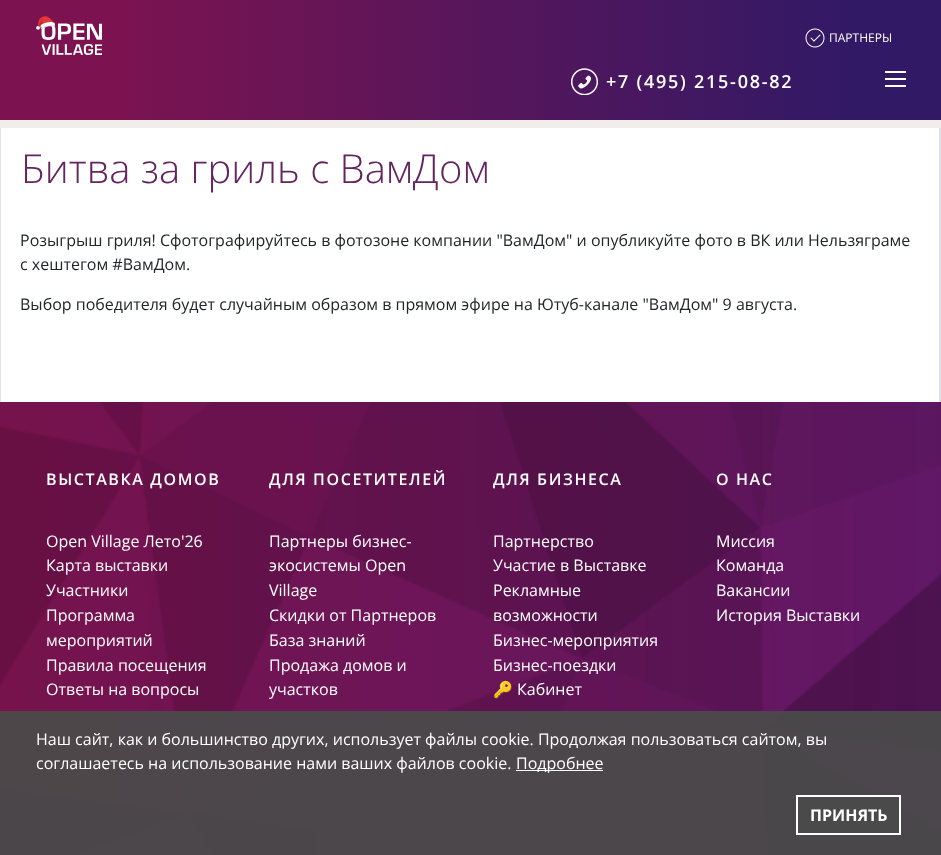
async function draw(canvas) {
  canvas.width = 941
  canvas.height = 855
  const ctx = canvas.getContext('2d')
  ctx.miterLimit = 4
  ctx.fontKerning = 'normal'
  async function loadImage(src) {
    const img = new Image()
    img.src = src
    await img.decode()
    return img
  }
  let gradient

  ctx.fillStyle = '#fff'
  ctx.fillRect(0, 0, 941, 855)
  gradient = ctx.createLinearGradient(0, 60, 941, 60)
  gradient.addColorStop(0.12, '#7c1350')
  gradient.addColorStop(0.9, '#321966')
  ctx.fillStyle = gradient
  ctx.fillRect(0, 0, 941, 120)
  ctx.drawImage(await loadImage('image0.png'), 36, 16, 66, 39)
  ctx.drawImage(await loadImage('image1.png'), 805, 28, 20, 20)
  ctx.font = '12px Open Sans'
  ctx.fillStyle = '#fff'
  ctx.fillText('ПАРТНЕРЫ', 829, 42)
  ctx.drawImage(await loadImage('image2.png'), 571, 68, 28, 27)
  ctx.letterSpacing = '1.75px'
  ctx.font = '600 18px Open Sans'
  ctx.fillText('+7 (495) 215-08-82', 606, 88)
  ctx.fillRect(885, 71, 21, 2)
  ctx.fillRect(885, 78, 21, 2)
  ctx.fillRect(885, 85, 21, 2)
  ctx.fillStyle = '#f0edea'
  ctx.fillRect(0, 120, 941, 8)
  ctx.fillStyle = '#dee2e6'
  ctx.fillRect(939, 128, 2, 274)
  ctx.fillRect(0, 128, 1, 274)
  ctx.letterSpacing = '0px'
  ctx.font = '300 40px Open Sans'
  ctx.fillStyle = '#632460'
  ctx.fillText('Битва за гриль с ВамДом', 21, 183)
  ctx.font = '16px Open Sans'
  ctx.fillStyle = '#212529'
  ctx.fillText('Розыгрыш гриля! Сфотографируйтесь в фотозоне компании "ВамДом" и опубликуйте фото в ВК или Нельзяграме', 20, 246)
  ctx.fillText('с хештегом #ВамДом.', 20, 270)
  ctx.fillText('Выбор победителя будет случайным образом в прямом эфире на Ютуб-канале "ВамДом" 9 августа.', 20, 310)
  ctx.drawImage(await loadImage('image3.png'), 0, 402, 941, 453)
  ctx.letterSpacing = '1.6px'
  ctx.font = '600 16px Open Sans'
  ctx.fillStyle = '#fff'
  ctx.fillText('ВЫСТАВКА ДОМОВ', 46, 485)
  ctx.letterSpacing = '0px'
  ctx.font = '16px Open Sans'
  ctx.fillText('Open Village Лето\'26', 46, 547)
  ctx.fillText('Карта выставки', 46, 571)
  ctx.fillText('Участники', 46, 596)
  ctx.fillText('Программа', 46, 621)
  ctx.fillText('мероприятий', 46, 646)
  ctx.fillText('Правила посещения', 46, 671)
  ctx.fillText('Ответы на вопросы', 46, 695)
  ctx.letterSpacing = '1.6px'
  ctx.font = '600 16px Open Sans'
  ctx.fillText('ДЛЯ ПОСЕТИТЕЛЕЙ', 269, 485)
  ctx.letterSpacing = '0px'
  ctx.font = '16px Open Sans'
  ctx.fillText('Партнеры бизнес-', 269, 547)
  ctx.fillText('экосистемы Open', 269, 571)
  ctx.fillText('Village', 269, 596)
  ctx.fillText('Скидки от Партнеров', 269, 621)
  ctx.fillText('База знаний', 269, 646)
  ctx.fillText('Продажа домов и', 269, 671)
  ctx.fillText('участков', 269, 695)
  ctx.letterSpacing = '1.6px'
  ctx.font = '600 16px Open Sans'
  ctx.fillText('ДЛЯ БИЗНЕСА', 493, 485)
  ctx.letterSpacing = '0px'
  ctx.font = '16px Open Sans'
  ctx.fillText('Партнерство', 493, 547)
  ctx.fillText('Участие в Выставке', 493, 571)
  ctx.fillText('Рекламные', 493, 596)
  ctx.fillText('возможности', 493, 621)
  ctx.fillText('Бизнес-мероприятия', 493, 646)
  ctx.fillText('Бизнес-поездки', 493, 671)
  ctx.font = '16px Noto Color Emoji'
  ctx.fillText('🔑', 493, 695)
  ctx.font = '16px Open Sans'
  ctx.fillText('Кабинет', 517, 695)
  ctx.letterSpacing = '1.6px'
  ctx.font = '600 16px Open Sans'
  ctx.fillText('О НАС', 716, 485)
  ctx.letterSpacing = '0px'
  ctx.font = '16px Open Sans'
  ctx.fillText('Миссия', 716, 547)
  ctx.fillText('Команда', 716, 571)
  ctx.fillText('Вакансии', 716, 596)
  ctx.fillText('История Выставки', 716, 621)
  ctx.fillStyle = '#4a4a4af0'
  ctx.fillRect(0, 711, 941, 144)
  ctx.fillStyle = '#fff'
  ctx.fillText('Наш сайт, как и большинство других, использует файлы cookie. Продолжая пользоваться сайтом, вы', 36, 745)
  ctx.fillText('соглашаетесь на использование нами ваших файлов cookie.', 36, 769)
  ctx.fillRect(516, 770, 87, 1)
  ctx.fillText('Подробнее', 516, 769)
  ctx.fillStyle = '#4a4a4a'
  ctx.beginPath()
  ctx.rect(797, 796, 103, 38)
  ctx.fill()
  ctx.strokeStyle = '#fff'
  ctx.lineWidth = 2
  ctx.stroke()
  ctx.font = 'bold 16px Open Sans'
  ctx.fillStyle = '#fff'
  ctx.fillText('ПРИНЯТЬ', 810, 821)
}

draw(document.querySelector('canvas'))
